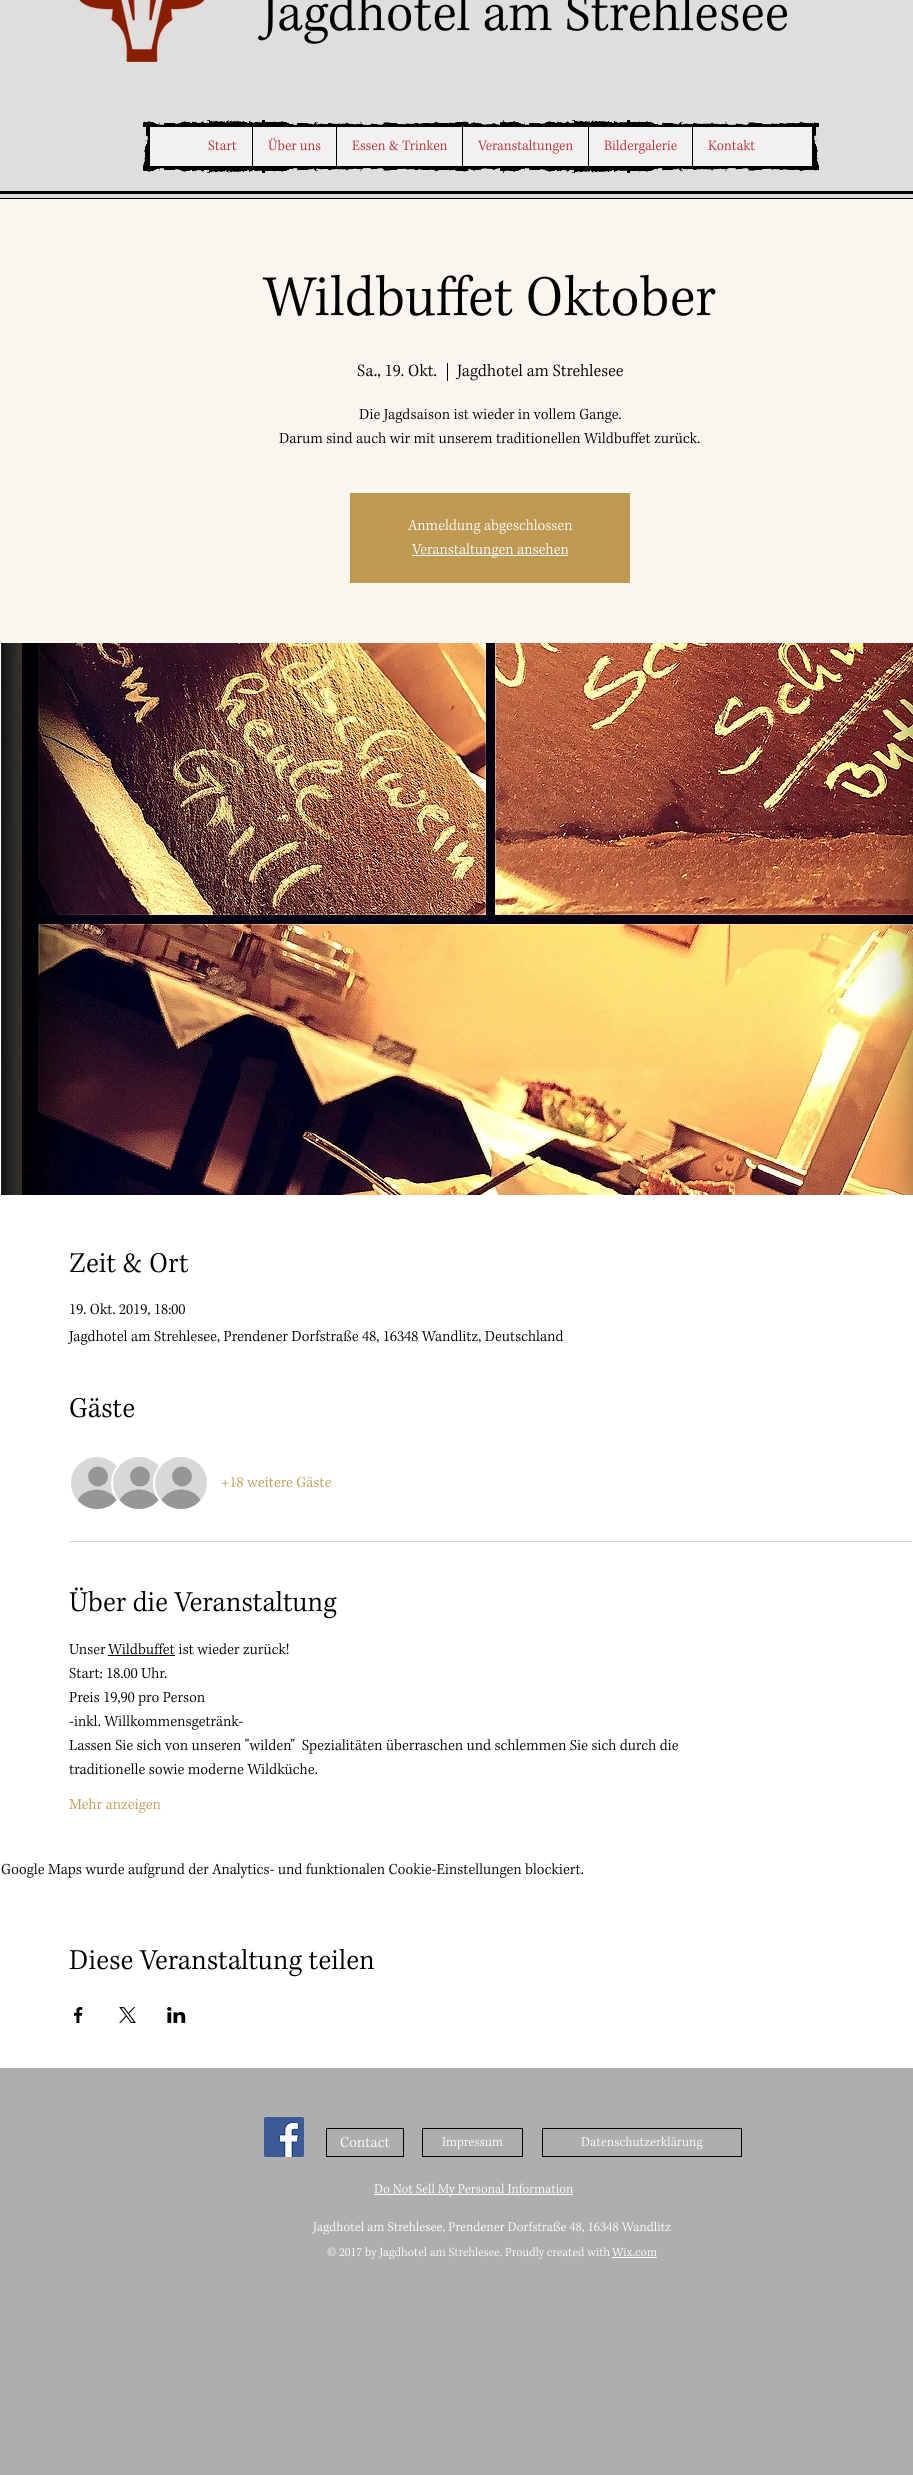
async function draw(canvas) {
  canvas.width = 913
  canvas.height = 2475
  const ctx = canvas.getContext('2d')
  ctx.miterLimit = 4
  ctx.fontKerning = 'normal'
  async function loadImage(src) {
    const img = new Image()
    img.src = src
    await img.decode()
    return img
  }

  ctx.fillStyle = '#fff'
  ctx.fillRect(0, 0, 913, 2475)
  ctx.fillStyle = '#e0dddd'
  ctx.fillRect(0, 0, 913, 198)
  ctx.drawImage(await loadImage('image0.png'), 79, 0, 126, 62)
  ctx.drawImage(await loadImage('image1.png'), 258, 0, 529, 44)
  ctx.drawImage(await loadImage('image2.png'), 143, 120, 676, 7)
  ctx.drawImage(await loadImage('image3.png'), 143, 127, 7, 39)
  ctx.fillStyle = '#f2f0f0'
  ctx.fillRect(150, 127, 662, 39)
  ctx.drawImage(await loadImage('image4.png'), 208, 140, 29, 11)
  ctx.fillStyle = '#000'
  ctx.fillRect(252, 127, 1, 39)
  ctx.drawImage(await loadImage('image5.png'), 268, 138, 53, 13)
  ctx.fillRect(336, 127, 1, 39)
  ctx.drawImage(await loadImage('image6.png'), 352, 140, 96, 11)
  ctx.fillRect(462, 127, 1, 39)
  ctx.drawImage(await loadImage('image7.png'), 477, 140, 96, 14)
  ctx.fillRect(588, 127, 1, 39)
  ctx.drawImage(await loadImage('image8.png'), 604, 140, 73, 14)
  ctx.fillRect(692, 127, 1, 39)
  ctx.drawImage(await loadImage('image9.png'), 708, 140, 47, 11)
  ctx.drawImage(await loadImage('image10.png'), 812, 127, 7, 39)
  ctx.drawImage(await loadImage('image11.png'), 143, 166, 676, 7)
  ctx.fillRect(0, 191, 913, 3)
  ctx.fillRect(0, 198, 913, 1)
  ctx.fillStyle = '#f9f6ef'
  ctx.fillRect(0, 199, 913, 720)
  ctx.drawImage(await loadImage('image12.png'), 262, 274, 454, 42)
  ctx.drawImage(await loadImage('image13.png'), 357, 364, 80, 14)
  ctx.fillStyle = '#000'
  ctx.fillRect(447, 363, 1, 18)
  ctx.drawImage(await loadImage('image14.png'), 455, 364, 168, 17)
  ctx.drawImage(await loadImage('image15.png'), 359, 408, 262, 15)
  ctx.drawImage(await loadImage('image16.png'), 279, 432, 421, 12)
  ctx.fillStyle = '#bf9952'
  ctx.fillRect(350, 493, 280, 90)
  ctx.drawImage(await loadImage('image17.png'), 407, 519, 166, 15)
  ctx.fillStyle = '#fff'
  ctx.fillRect(412, 555, 156, 1)
  ctx.drawImage(await loadImage('image18.png'), 411, 543, 158, 15)
  ctx.drawImage(await loadImage('image19.png'), 1, 643, 912, 552)
  ctx.drawImage(await loadImage('image20.png'), 70, 1252, 119, 21)
  ctx.drawImage(await loadImage('image21.png'), 70, 1303, 115, 13)
  ctx.drawImage(await loadImage('image22.png'), 67, 1330, 497, 15)
  ctx.drawImage(await loadImage('image23.png'), 70, 1397, 64, 21)
  ctx.fillStyle = '#d8d8d8'
  ctx.beginPath()
  ctx.arc(97, 1483, 27, 0, 2 * Math.PI)
  ctx.fill()
  ctx.strokeStyle = '#fff'
  ctx.lineWidth = 2
  ctx.stroke()
  ctx.fillStyle = '#969696'
  ctx.beginPath()
  ctx.arc(98, 1476.5, 10, 0, 2 * Math.PI)
  ctx.fill()
  ctx.beginPath()
  ctx.moveTo(116.5, 1500)
  ctx.bezierCurveTo(106.5, 1512, 87.5, 1512, 77.5, 1500)
  ctx.bezierCurveTo(86, 1486, 108, 1486, 116.5, 1500)
  ctx.closePath()
  ctx.fill()
  ctx.fillStyle = '#d8d8d8'
  ctx.beginPath()
  ctx.arc(139, 1483, 27, 0, 2 * Math.PI)
  ctx.fill()
  ctx.stroke()
  ctx.fillStyle = '#969696'
  ctx.beginPath()
  ctx.arc(140, 1476.5, 10, 0, 2 * Math.PI)
  ctx.fill()
  ctx.beginPath()
  ctx.moveTo(158.5, 1500)
  ctx.bezierCurveTo(148.5, 1512, 129.5, 1512, 119.5, 1500)
  ctx.bezierCurveTo(128, 1486, 150, 1486, 158.5, 1500)
  ctx.closePath()
  ctx.fill()
  ctx.fillStyle = '#d8d8d8'
  ctx.beginPath()
  ctx.arc(181, 1483, 27, 0, 2 * Math.PI)
  ctx.fill()
  ctx.stroke()
  ctx.fillStyle = '#969696'
  ctx.beginPath()
  ctx.arc(182, 1476.5, 10, 0, 2 * Math.PI)
  ctx.fill()
  ctx.beginPath()
  ctx.moveTo(200.5, 1500)
  ctx.bezierCurveTo(190.5, 1512, 171.5, 1512, 161.5, 1500)
  ctx.bezierCurveTo(170, 1486, 192, 1486, 200.5, 1500)
  ctx.closePath()
  ctx.fill()
  ctx.drawImage(await loadImage('image24.png'), 221, 1476, 110, 12)
  ctx.fillStyle = '#d9d9d9'
  ctx.fillRect(69, 1541, 843, 1)
  ctx.drawImage(await loadImage('image25.png'), 69, 1587, 268, 32)
  ctx.drawImage(await loadImage('image26.png'), 69, 1644, 37, 11)
  ctx.drawImage(await loadImage('image27.png'), 107, 1643, 68, 12)
  ctx.drawImage(await loadImage('image28.png'), 178, 1643, 111, 12)
  ctx.fillStyle = '#000'
  ctx.fillRect(108, 1655, 67, 1)
  ctx.drawImage(await loadImage('image29.png'), 69, 1667, 98, 12)
  ctx.drawImage(await loadImage('image30.png'), 69, 1692, 136, 14)
  ctx.drawImage(await loadImage('image31.png'), 69, 1715, 174, 15)
  ctx.drawImage(await loadImage('image32.png'), 69, 1738, 609, 16)
  ctx.drawImage(await loadImage('image33.png'), 69, 1763, 248, 12)
  ctx.drawImage(await loadImage('image34.png'), 69, 1798, 92, 15)
  ctx.drawImage(await loadImage('image35.png'), 1, 1863, 582, 15)
  ctx.drawImage(await loadImage('image36.png'), 69, 1948, 306, 29)
  ctx.drawImage(await loadImage('image37.png'), 74, 2007, 9, 16)
  ctx.drawImage(await loadImage('image38.png'), 119, 2007, 17, 16)
  ctx.drawImage(await loadImage('image39.png'), 167, 2007, 19, 16)
  ctx.fillStyle = '#aeaeae'
  ctx.fillRect(0, 2068, 913, 407)
  ctx.drawImage(await loadImage('image40.png'), 264, 2117, 40, 40)
  ctx.strokeStyle = '#000'
  ctx.lineWidth = 1
  ctx.strokeRect(326.5, 2128.5, 77, 28)
  ctx.drawImage(await loadImage('image41.png'), 340, 2136, 50, 12)
  ctx.strokeRect(422.5, 2128.5, 100, 28)
  ctx.drawImage(await loadImage('image42.png'), 442, 2137, 61, 13)
  ctx.strokeRect(542.5, 2128.5, 199, 28)
  ctx.drawImage(await loadImage('image43.png'), 581, 2136, 122, 14)
  ctx.fillStyle = '#fff'
  ctx.fillRect(374, 2194, 199, 1)
  ctx.drawImage(await loadImage('image44.png'), 374, 2183, 199, 14)
  ctx.drawImage(await loadImage('image45.png'), 312, 2221, 359, 14)
  ctx.drawImage(await loadImage('image46.png'), 327, 2247, 283, 13)
  ctx.drawImage(await loadImage('image47.png'), 612, 2247, 45, 10)
  ctx.fillRect(612, 2257, 45, 1)
}

draw(document.querySelector('canvas'))
